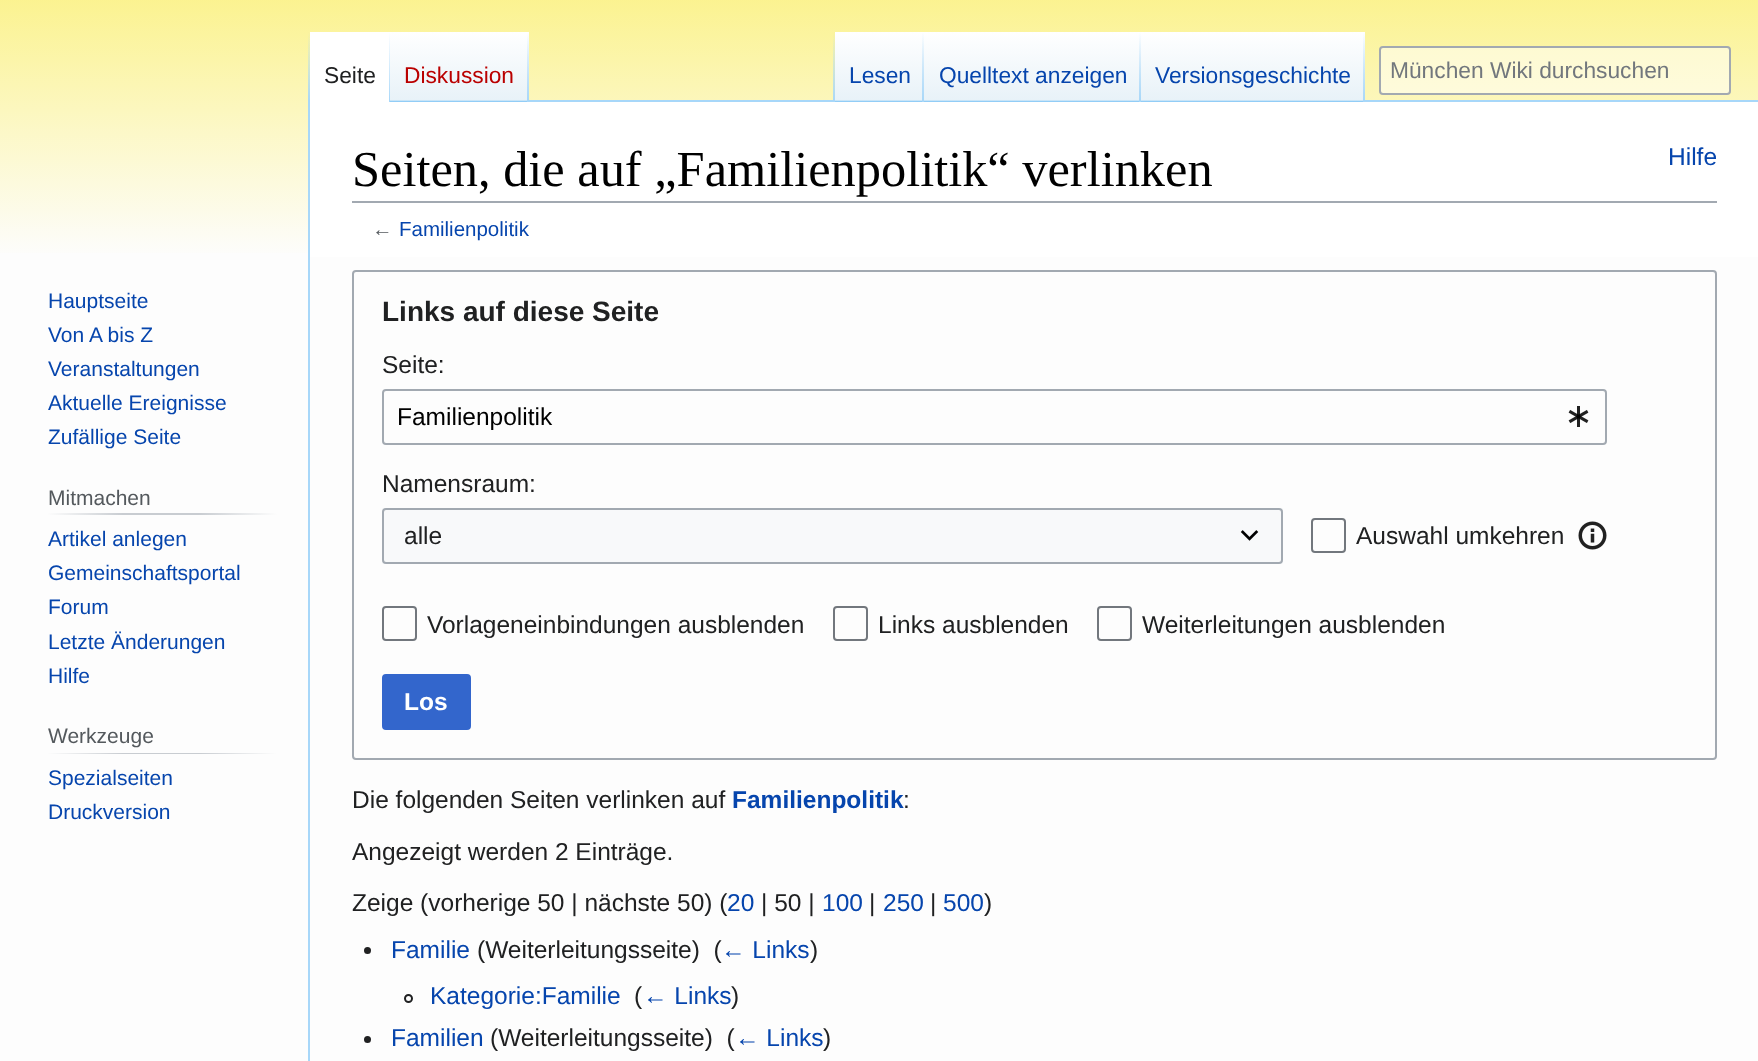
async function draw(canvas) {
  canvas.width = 1758
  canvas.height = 1061
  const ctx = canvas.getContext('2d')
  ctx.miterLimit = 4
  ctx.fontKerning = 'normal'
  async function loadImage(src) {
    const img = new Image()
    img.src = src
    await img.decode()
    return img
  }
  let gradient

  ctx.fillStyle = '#fdfdfd'
  ctx.fillRect(0, 0, 1758, 1061)
  gradient = ctx.createLinearGradient(879, -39, 879, 1024)
  gradient.addColorStop(0, '#fbf180')
  gradient.addColorStop(0.28, '#fdfdfd')
  ctx.fillStyle = gradient
  ctx.fillRect(0, 0, 1758, 253)
  ctx.fillStyle = '#a7d7f9'
  ctx.fillRect(308, 100, 2, 961)
  gradient = ctx.createLinearGradient(309, 32, 309, 102)
  gradient.addColorStop(0, '#a7d7f900')
  gradient.addColorStop(1, '#a7d7f9')
  ctx.fillStyle = gradient
  ctx.fillRect(308, 32, 2, 70)
  ctx.fillStyle = '#fff'
  ctx.fillRect(310, 32, 79, 70)
  gradient = ctx.createLinearGradient(389, 32, 389, 102)
  gradient.addColorStop(0, '#fff')
  gradient.addColorStop(1, '#a7d7f9')
  ctx.fillStyle = gradient
  ctx.fillRect(389, 32, 1, 70)
  ctx.font = '22.75px Liberation Sans'
  ctx.fillStyle = '#202122'
  ctx.fillText('Seite', 324, 83)
  gradient = ctx.createLinearGradient(459, 102, 459, 32)
  gradient.addColorStop(0, '#77c1f6')
  gradient.addColorStop(0.03, '#e8f2f8')
  gradient.addColorStop(1, '#fff')
  ctx.fillStyle = gradient
  ctx.fillRect(390, 32, 139, 70)
  gradient = ctx.createLinearGradient(528, 32, 528, 102)
  gradient.addColorStop(0, '#a7d7f900')
  gradient.addColorStop(1, '#a7d7f9')
  ctx.fillStyle = gradient
  ctx.fillRect(527, 32, 2, 70)
  ctx.fillStyle = '#ba0000'
  ctx.fillText('Diskussion', 404, 83)
  ctx.fillStyle = '#a7d7f9'
  ctx.fillRect(529, 100, 1229, 2)
  gradient = ctx.createLinearGradient(834, 32, 834, 102)
  gradient.addColorStop(0, '#a7d7f900')
  gradient.addColorStop(1, '#a7d7f9')
  ctx.fillStyle = gradient
  ctx.fillRect(833, 32, 2, 70)
  gradient = ctx.createLinearGradient(879, 102, 879, 32)
  gradient.addColorStop(0, '#77c1f6')
  gradient.addColorStop(0.03, '#e8f2f8')
  gradient.addColorStop(1, '#fff')
  ctx.fillStyle = gradient
  ctx.fillRect(835, 32, 89, 70)
  gradient = ctx.createLinearGradient(923, 32, 923, 102)
  gradient.addColorStop(0, '#a7d7f900')
  gradient.addColorStop(1, '#a7d7f9')
  ctx.fillStyle = gradient
  ctx.fillRect(922, 32, 2, 70)
  ctx.fillStyle = '#0645ad'
  ctx.fillText('Lesen', 849, 83)
  gradient = ctx.createLinearGradient(1033, 102, 1033, 32)
  gradient.addColorStop(0, '#77c1f6')
  gradient.addColorStop(0.03, '#e8f2f8')
  gradient.addColorStop(1, '#fff')
  ctx.fillStyle = gradient
  ctx.fillRect(924, 32, 217, 70)
  gradient = ctx.createLinearGradient(1140, 32, 1140, 102)
  gradient.addColorStop(0, '#a7d7f900')
  gradient.addColorStop(1, '#a7d7f9')
  ctx.fillStyle = gradient
  ctx.fillRect(1139, 32, 2, 70)
  ctx.fillStyle = '#0645ad'
  ctx.fillText('Quelltext anzeigen', 939, 83)
  gradient = ctx.createLinearGradient(1253, 102, 1253, 32)
  gradient.addColorStop(0, '#77c1f6')
  gradient.addColorStop(0.03, '#e8f2f8')
  gradient.addColorStop(1, '#fff')
  ctx.fillStyle = gradient
  ctx.fillRect(1141, 32, 224, 70)
  gradient = ctx.createLinearGradient(1364, 32, 1364, 102)
  gradient.addColorStop(0, '#a7d7f900')
  gradient.addColorStop(1, '#a7d7f9')
  ctx.fillStyle = gradient
  ctx.fillRect(1363, 32, 2, 70)
  ctx.fillStyle = '#0645ad'
  ctx.fillText('Versionsgeschichte', 1155, 83)
  ctx.fillStyle = '#ffffff80'
  ctx.beginPath()
  ctx.roundRect(1380, 47, 350, 47, 3)
  ctx.fill()
  ctx.strokeStyle = '#a2a9b1'
  ctx.lineWidth = 2
  ctx.stroke()
  ctx.fillStyle = '#72777d'
  ctx.fillText('München Wiki durchsuchen', 1390, 78)
  ctx.font = '21px Liberation Sans'
  ctx.fillStyle = '#0645ad'
  ctx.fillText('Hauptseite', 48, 308)
  ctx.fillText('Von A bis Z', 48, 342)
  ctx.fillText('Veranstaltungen', 48, 376)
  ctx.fillText('Aktuelle Ereignisse', 48, 410)
  ctx.fillText('Zufällige Seite', 48, 444)
  gradient = ctx.createLinearGradient(47, 514, 277, 514)
  gradient.addColorStop(0, '#fdfdfd')
  gradient.addColorStop(0.33, '#c8ccd1')
  gradient.addColorStop(0.66, '#c8ccd1')
  gradient.addColorStop(1, '#fdfdfd')
  ctx.fillStyle = gradient
  ctx.fillRect(47, 513, 230, 2)
  ctx.fillStyle = '#54595d'
  ctx.fillText('Mitmachen', 48, 505)
  ctx.fillStyle = '#0645ad'
  ctx.fillText('Artikel anlegen', 48, 546)
  ctx.fillText('Gemeinschaftsportal', 48, 580)
  ctx.fillText('Forum', 48, 614)
  ctx.fillText('Letzte Änderungen', 48, 649)
  ctx.fillText('Hilfe', 48, 683)
  gradient = ctx.createLinearGradient(47, 753, 277, 753)
  gradient.addColorStop(0, '#fdfdfd')
  gradient.addColorStop(0.33, '#c8ccd1')
  gradient.addColorStop(0.66, '#c8ccd1')
  gradient.addColorStop(1, '#fdfdfd')
  ctx.fillStyle = gradient
  ctx.fillRect(47, 753, 230, 1)
  ctx.fillStyle = '#54595d'
  ctx.fillText('Werkzeuge', 48, 743)
  ctx.fillStyle = '#0645ad'
  ctx.fillText('Spezialseiten', 48, 785)
  ctx.fillText('Druckversion', 48, 819)
  ctx.fillStyle = '#fff'
  ctx.fillRect(310, 102, 1448, 155)
  ctx.fillStyle = '#a2a9b1'
  ctx.fillRect(352, 201, 1365, 2)
  ctx.font = '50.4px Liberation Serif'
  ctx.fillStyle = '#000'
  ctx.fillText('Seiten, die auf „Familienpolitik“ verlinken', 352, 186)
  ctx.font = '24.5px Liberation Sans'
  ctx.fillStyle = '#0645ad'
  ctx.fillText('Hilfe', 1668, 165)
  ctx.font = '20.5px Liberation Sans'
  ctx.fillStyle = '#54595d'
  ctx.fillText('←', 372, 236)
  ctx.fillStyle = '#0645ad'
  ctx.fillText('Familienpolitik', 399, 236)
  ctx.beginPath()
  ctx.roundRect(353, 271, 1363, 488, 3)
  ctx.stroke()
  ctx.font = 'bold 28px Liberation Sans'
  ctx.fillStyle = '#202122'
  ctx.fillText('Links auf diese Seite', 382, 321)
  ctx.font = '24.5px Liberation Sans'
  ctx.fillText('Seite:', 382, 373)
  ctx.beginPath()
  ctx.roundRect(383, 390, 1223, 54, 3)
  ctx.stroke()
  ctx.fillStyle = '#000'
  ctx.fillText('Familienpolitik', 397, 425)
  ctx.drawImage(await loadImage('image0.png'), 1568, 406, 21, 21)
  ctx.fillStyle = '#202122'
  ctx.fillText('Namensraum:', 382, 492)
  ctx.fillStyle = '#f8f9fa'
  ctx.fillRect(382, 508, 901, 56)
  ctx.drawImage(await loadImage('image1.png'), 1240, 530, 19, 11)
  ctx.beginPath()
  ctx.roundRect(383, 509, 899, 54, 3)
  ctx.stroke()
  ctx.fillStyle = '#202122'
  ctx.fillText('alle', 404, 544)
  ctx.beginPath()
  ctx.roundRect(1312, 519, 33, 33, 3)
  ctx.strokeStyle = '#72777d'
  ctx.stroke()
  ctx.fillText('Auswahl umkehren', 1356, 544)
  ctx.drawImage(await loadImage('image2.png'), 1578, 521, 29, 29)
  ctx.beginPath()
  ctx.roundRect(383, 607, 33, 33, 3)
  ctx.stroke()
  ctx.fillText('Vorlageneinbindungen ausblenden', 427, 633)
  ctx.beginPath()
  ctx.roundRect(834, 607, 33, 33, 3)
  ctx.stroke()
  ctx.fillText('Links ausblenden', 878, 633)
  ctx.beginPath()
  ctx.roundRect(1098, 607, 33, 33, 3)
  ctx.stroke()
  ctx.fillText('Weiterleitungen ausblenden', 1142, 633)
  ctx.fillStyle = '#36c'
  ctx.beginPath()
  ctx.roundRect(383, 675, 87, 54, 3)
  ctx.fill()
  ctx.strokeStyle = '#36c'
  ctx.stroke()
  ctx.font = 'bold 24.5px Liberation Sans'
  ctx.fillStyle = '#fff'
  ctx.fillText('Los', 404, 710)
  ctx.font = '24.5px Liberation Sans'
  ctx.fillStyle = '#202122'
  ctx.fillText('Die folgenden Seiten verlinken auf', 352, 808)
  ctx.font = 'bold 24.5px Liberation Sans'
  ctx.fillStyle = '#0645ad'
  ctx.fillText('Familienpolitik', 732, 808)
  ctx.font = '24.5px Liberation Sans'
  ctx.fillStyle = '#202122'
  ctx.fillText(':', 903, 808)
  ctx.fillText('Angezeigt werden 2 Einträge.', 352, 860)
  ctx.fillText('Zeige (vorherige 50 | nächste 50) (', 352, 911)
  ctx.fillStyle = '#0645ad'
  ctx.fillText('20', 727, 911)
  ctx.fillStyle = '#202122'
  ctx.fillText('| 50 |', 761, 911)
  ctx.fillStyle = '#0645ad'
  ctx.fillText('100', 822, 911)
  ctx.fillStyle = '#202122'
  ctx.fillText('|', 869, 911)
  ctx.fillStyle = '#0645ad'
  ctx.fillText('250', 883, 911)
  ctx.fillStyle = '#202122'
  ctx.fillText('|', 930, 911)
  ctx.fillStyle = '#0645ad'
  ctx.fillText('500', 943, 911)
  ctx.fillStyle = '#202122'
  ctx.fillText(')', 984, 911)
  ctx.beginPath()
  ctx.arc(367.5, 950.5, 3.5, 0, 2 * Math.PI)
  ctx.fill()
  ctx.fillStyle = '#0645ad'
  ctx.fillText('Familie', 391, 958)
  ctx.fillStyle = '#202122'
  ctx.fillText('(Weiterleitungsseite)  (', 477, 958)
  ctx.fillStyle = '#0645ad'
  ctx.fillText('← Links', 721, 958)
  ctx.fillStyle = '#202122'
  ctx.fillText(')', 810, 958)
  ctx.beginPath()
  ctx.arc(408.5, 998.5, 3.5, 0, 2 * Math.PI)
  ctx.strokeStyle = '#202122'
  ctx.stroke()
  ctx.fillStyle = '#0645ad'
  ctx.fillText('Kategorie:Familie', 430, 1004)
  ctx.fillStyle = '#202122'
  ctx.fillText('(', 634, 1004)
  ctx.fillStyle = '#0645ad'
  ctx.fillText('← Links', 643, 1004)
  ctx.fillStyle = '#202122'
  ctx.fillText(')', 731, 1004)
  ctx.beginPath()
  ctx.arc(367.5, 1039.5, 3.5, 0, 2 * Math.PI)
  ctx.fill()
  ctx.fillStyle = '#0645ad'
  ctx.fillText('Familien', 391, 1046)
  ctx.fillStyle = '#202122'
  ctx.fillText('(Weiterleitungsseite)  (', 490, 1046)
  ctx.fillStyle = '#0645ad'
  ctx.fillText('← Links', 735, 1046)
  ctx.fillStyle = '#202122'
  ctx.fillText(')', 823, 1046)
}

draw(document.querySelector('canvas'))
